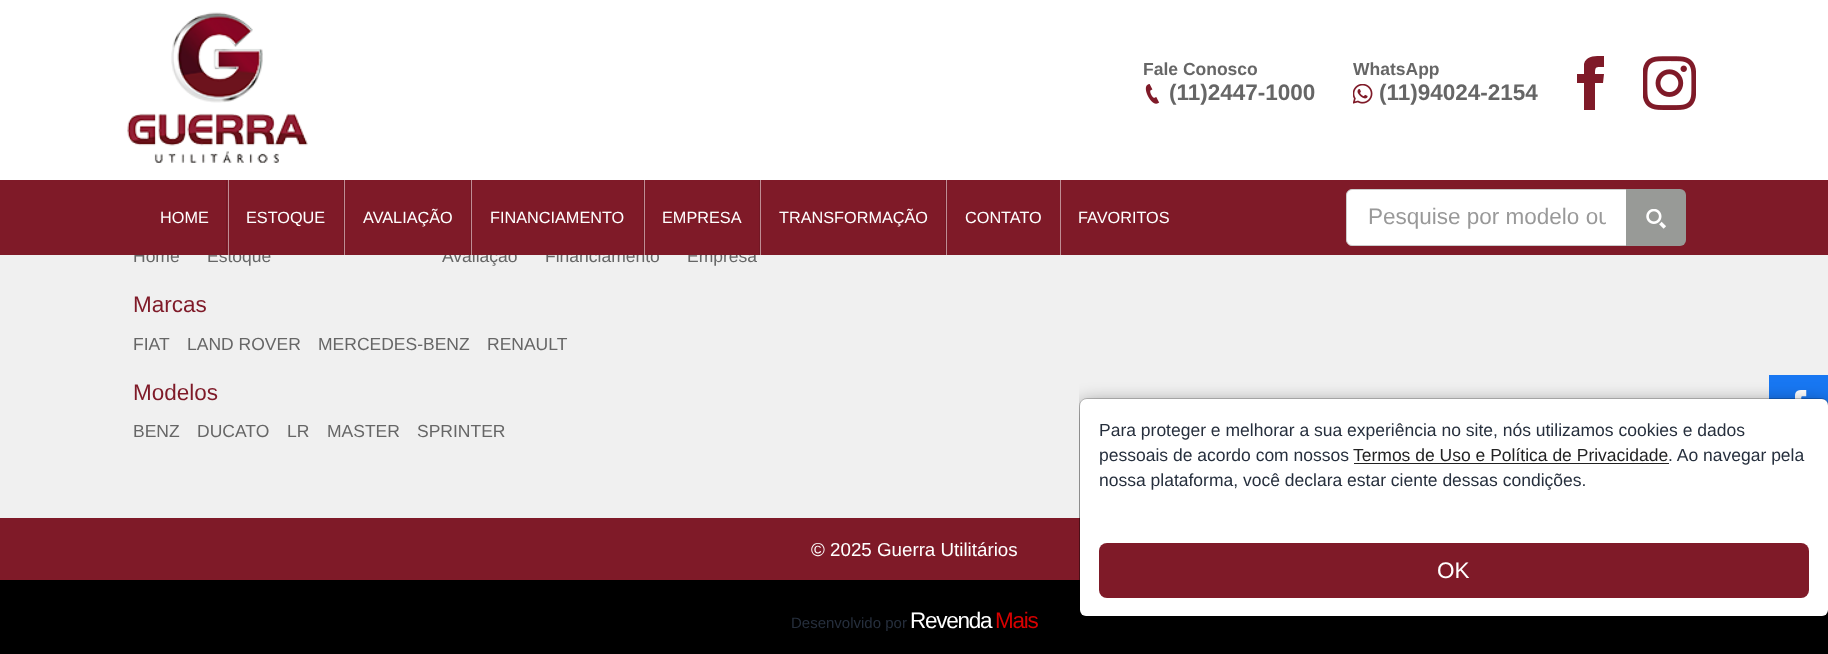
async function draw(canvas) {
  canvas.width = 1828
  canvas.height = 654
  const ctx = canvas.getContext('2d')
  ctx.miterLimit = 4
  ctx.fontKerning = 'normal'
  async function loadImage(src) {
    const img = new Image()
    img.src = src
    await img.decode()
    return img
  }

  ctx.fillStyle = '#f0f0f0'
  ctx.fillRect(0, 0, 1828, 654)
  ctx.fillStyle = '#fff'
  ctx.fillRect(0, 0, 1828, 180)
  ctx.drawImage(await loadImage('image0.png'), 127, 12, 181, 151)
  ctx.font = 'bold 17.5px Liberation Sans'
  ctx.fillStyle = '#666'
  ctx.fillText('Fale Conosco', 1143, 75)
  ctx.drawImage(await loadImage('image1.png'), 1145, 84, 15, 20)
  ctx.font = 'bold 22.5px Liberation Sans'
  ctx.fillText('(11)2447-1000', 1169, 100)
  ctx.font = 'bold 17.5px Liberation Sans'
  ctx.fillText('WhatsApp', 1353, 75)
  ctx.drawImage(await loadImage('image2.png'), 1353, 84, 20, 20)
  ctx.font = 'bold 22.5px Liberation Sans'
  ctx.fillText('(11)94024-2154', 1379, 100)
  ctx.fillStyle = '#7f1a28'
  ctx.beginPath()
  ctx.moveTo(1584, 74)
  ctx.lineTo(1577, 74)
  ctx.lineTo(1577, 83)
  ctx.lineTo(1584, 83)
  ctx.lineTo(1584, 110)
  ctx.lineTo(1595, 110)
  ctx.lineTo(1595, 83)
  ctx.lineTo(1603, 83)
  ctx.lineTo(1604, 74)
  ctx.lineTo(1595, 74)
  ctx.bezierCurveTo(1595, 66, 1596, 67, 1604, 67)
  ctx.lineTo(1604, 56)
  ctx.bezierCurveTo(1597, 56, 1586, 55, 1584, 64)
  ctx.closePath()
  ctx.fill()
  ctx.drawImage(await loadImage('image3.png'), 1643, 56, 53, 54)
  ctx.font = '17.5px Liberation Sans'
  ctx.fillStyle = '#666'
  ctx.fillText('Home', 133, 262)
  ctx.fillText('Estoque', 207, 262)
  ctx.fillText('Avaliação', 442, 262)
  ctx.fillText('Financiamento', 545, 262)
  ctx.fillText('Empresa', 687, 262)
  ctx.fillStyle = '#7f1a28'
  ctx.fillRect(0, 180, 1828, 75)
  ctx.fillStyle = '#721724'
  ctx.fillRect(226, 180, 1, 75)
  ctx.font = '16.25px Liberation Sans'
  ctx.fillStyle = '#fff'
  ctx.fillText('HOME', 160, 223)
  ctx.fillStyle = '#721724'
  ctx.fillRect(343, 180, 1, 75)
  ctx.fillStyle = '#bf8d94'
  ctx.fillRect(228, 180, 1, 75)
  ctx.fillStyle = '#fff'
  ctx.fillText('ESTOQUE', 246, 223)
  ctx.fillStyle = '#721724'
  ctx.fillRect(470, 180, 1, 75)
  ctx.fillStyle = '#bf8d94'
  ctx.fillRect(344, 180, 1, 75)
  ctx.fillStyle = '#fff'
  ctx.fillText('AVALIAÇÃO', 363, 223)
  ctx.fillStyle = '#721724'
  ctx.fillRect(643, 180, 1, 75)
  ctx.fillStyle = '#bf8d94'
  ctx.fillRect(471, 180, 1, 75)
  ctx.fillStyle = '#fff'
  ctx.fillText('FINANCIAMENTO', 490, 223)
  ctx.fillStyle = '#721724'
  ctx.fillRect(759, 180, 1, 75)
  ctx.fillStyle = '#bf8d94'
  ctx.fillRect(644, 180, 1, 75)
  ctx.fillStyle = '#fff'
  ctx.fillText('EMPRESA', 662, 223)
  ctx.fillStyle = '#721724'
  ctx.fillRect(945, 180, 1, 75)
  ctx.fillStyle = '#bf8d94'
  ctx.fillRect(760, 180, 1, 75)
  ctx.fillStyle = '#fff'
  ctx.fillText('TRANSFORMAÇÃO', 779, 223)
  ctx.fillStyle = '#bf8d94'
  ctx.fillRect(946, 180, 1, 75)
  ctx.fillStyle = '#fff'
  ctx.fillText('CONTATO', 965, 223)
  ctx.fillStyle = '#bf8d94'
  ctx.fillRect(1060, 180, 1, 75)
  ctx.fillStyle = '#fff'
  ctx.fillText('FAVORITOS', 1078, 223)
  ctx.beginPath()
  ctx.roundRect(1346.5, 189.5, 281, 56, [5.5, 0, 0, 5.5])
  ctx.fill()
  ctx.strokeStyle = '#ccc'
  ctx.stroke()
  ctx.save()
  ctx.beginPath()
  ctx.rect(1368, 205, 238, 26)
  ctx.clip()
  ctx.font = '22.5px Liberation Sans'
  ctx.fillStyle = '#999'
  ctx.fillText('Pesquise por modelo ou', 1368, 224)
  ctx.restore()
  ctx.fillStyle = '#989a97'
  ctx.beginPath()
  ctx.roundRect(1626, 189, 60, 57, [0, 6, 6, 0])
  ctx.fill()
  ctx.drawImage(await loadImage('image4.png'), 1646, 209, 20, 20)
  ctx.font = '22.5px Liberation Sans'
  ctx.fillStyle = '#7f1a28'
  ctx.fillText('Marcas', 133, 312)
  ctx.font = '17.5px Liberation Sans'
  ctx.fillStyle = '#666'
  ctx.fillText('FIAT', 133, 350)
  ctx.fillText('LAND ROVER', 187, 350)
  ctx.fillText('MERCEDES-BENZ', 318, 350)
  ctx.fillText('RENAULT', 487, 350)
  ctx.font = '22.5px Liberation Sans'
  ctx.fillStyle = '#7f1a28'
  ctx.fillText('Modelos', 133, 400)
  ctx.font = '17.5px Liberation Sans'
  ctx.fillStyle = '#666'
  ctx.fillText('BENZ', 133, 437)
  ctx.fillText('DUCATO', 197, 437)
  ctx.fillText('LR', 287, 437)
  ctx.fillText('MASTER', 327, 437)
  ctx.fillText('SPRINTER', 417, 437)
  ctx.fillStyle = '#1877f2'
  ctx.fillRect(1769, 375, 59, 30)
  ctx.drawImage(await loadImage('image5.png'), 1795, 390, 12, 9)
  ctx.fillStyle = '#7f1a28'
  ctx.fillRect(0, 518, 1080, 62)
  ctx.font = '18.75px Liberation Sans'
  ctx.fillStyle = '#fff'
  ctx.fillText('© 2025 Guerra Utilitários', 811, 556)
  ctx.fillStyle = '#000'
  ctx.fillRect(0, 580, 1828, 74)
  ctx.save()
  ctx.beginPath()
  ctx.rect(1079, 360, 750, 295)
  ctx.clip()
  ctx.fillStyle = '#00000080'
  ctx.filter = 'blur(9.5px)'
  ctx.beginPath()
  ctx.roundRect(1079, 404, 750, 220, 8)
  ctx.fill()
  ctx.filter = 'none'
  ctx.restore()
  ctx.fillStyle = '#fff'
  ctx.beginPath()
  ctx.roundRect(1080, 399, 748, 217, 6)
  ctx.fill()
  ctx.beginPath()
  ctx.roundRect(1079.5, 398.5, 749, 219, 7.5)
  ctx.strokeStyle = '#00000033'
  ctx.stroke()
  ctx.font = '17.5px Liberation Sans'
  ctx.fillStyle = '#262f3d'
  ctx.fillText('Para proteger e melhorar a sua experiência no site, nós utilizamos cookies e dados', 1099, 436)
  ctx.fillText('pessoais de acordo com nossos', 1099, 461)
  ctx.fillStyle = '#222'
  ctx.fillText('Termos de Uso e Política de Privacidade', 1353, 461)
  ctx.fillRect(1354, 463, 315, 1)
  ctx.fillStyle = '#262f3d'
  ctx.fillText('. Ao navegar pela', 1668, 461)
  ctx.fillText('nossa plataforma, você declara estar ciente dessas condições.', 1099, 486)
  ctx.fillStyle = '#7f1a28'
  ctx.beginPath()
  ctx.roundRect(1099, 543, 710, 55, 8)
  ctx.fill()
  ctx.font = '22.5px Liberation Sans'
  ctx.fillStyle = '#fff'
  ctx.fillText('OK', 1437, 578)
  ctx.font = '15px Liberation Sans'
  ctx.fillStyle = '#262f3d'
  ctx.fillText('Desenvolvido por', 791, 628)
  ctx.letterSpacing = '-1.25px'
  ctx.font = '22.5px Liberation Sans'
  ctx.fillStyle = '#fff'
  ctx.fillText('Revenda', 910, 628)
  ctx.fillStyle = '#d70000'
  ctx.fillText('Mais', 995, 628)
}

draw(document.querySelector('canvas'))
